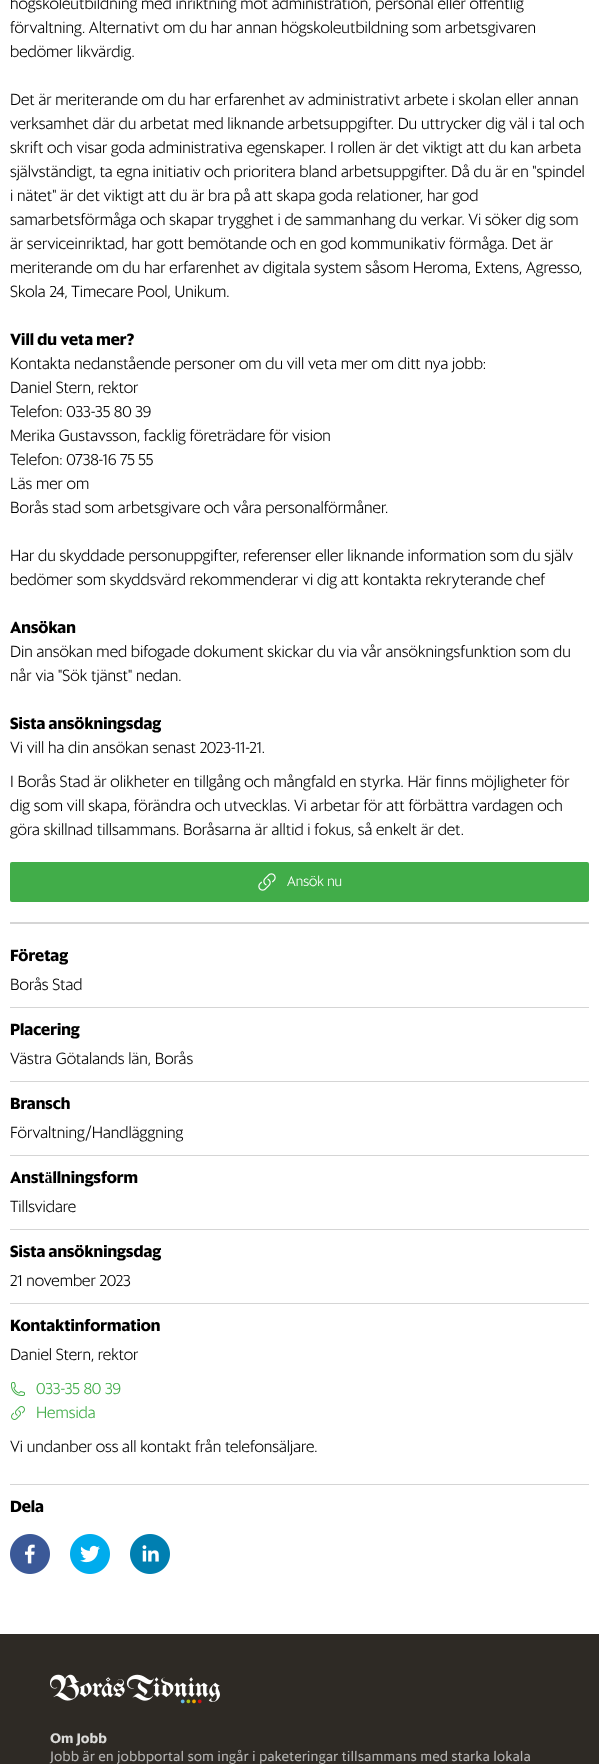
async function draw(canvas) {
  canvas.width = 599
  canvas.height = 1764
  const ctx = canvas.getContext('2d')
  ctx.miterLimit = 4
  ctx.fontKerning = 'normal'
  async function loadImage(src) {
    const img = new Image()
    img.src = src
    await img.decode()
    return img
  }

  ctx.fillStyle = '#fff'
  ctx.fillRect(0, 0, 599, 1764)
  ctx.fillStyle = '#d5d5d5'
  ctx.fillRect(10, 922, 579, 2)
  ctx.font = '16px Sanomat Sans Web'
  ctx.fillStyle = '#000'
  ctx.fillText('högskoleutbildning med inriktning mot administration, personal eller offentlig', 10, 9)
  ctx.fillText('förvaltning. Alternativt om du har annan högskoleutbildning som arbetsgivaren', 10, 33)
  ctx.fillText('bedömer likvärdig.', 10, 57)
  ctx.fillText('Det är meriterande om du har erfarenhet av administrativt arbete i skolan eller annan', 10, 105)
  ctx.fillText('verksamhet där du arbetat med liknande arbetsuppgifter. Du uttrycker dig väl i tal och', 10, 129)
  ctx.fillText('skrift och visar goda administrativa egenskaper. I rollen är det viktigt att du kan arbeta', 10, 153)
  ctx.fillText('självständigt, ta egna initiativ och prioritera bland arbetsuppgifter. Då du är en "spindel', 10, 177)
  ctx.fillText('i nätet" är det viktigt att du är bra på att skapa goda relationer, har god', 10, 201)
  ctx.fillText('samarbetsförmåga och skapar trygghet i de sammanhang du verkar. Vi söker dig som', 10, 225)
  ctx.fillText('är serviceinriktad, har gott bemötande och en god kommunikativ förmåga. Det är', 10, 249)
  ctx.fillText('meriterande om du har erfarenhet av digitala system såsom Heroma, Extens, Agresso,', 10, 273)
  ctx.fillText('Skola 24, Timecare Pool, Unikum.', 10, 297)
  ctx.font = 'bold 16px Sanomat Sans Web'
  ctx.fillText('Vill du veta mer?', 10, 345)
  ctx.font = '16px Sanomat Sans Web'
  ctx.fillText('Kontakta nedanstående personer om du vill veta mer om ditt nya jobb:', 10, 369)
  ctx.fillText('Daniel Stern, rektor', 10, 393)
  ctx.fillText('Telefon: 033-35 80 39', 10, 417)
  ctx.fillText('Merika Gustavsson, facklig företrädare för vision', 10, 441)
  ctx.fillText('Telefon: 0738-16 75 55', 10, 465)
  ctx.fillText('Läs mer om', 10, 489)
  ctx.fillText('Borås stad som arbetsgivare och våra personalförmåner.', 10, 513)
  ctx.fillText('Har du skyddade personuppgifter, referenser eller liknande information som du själv', 10, 561)
  ctx.fillText('bedömer som skyddsvärd rekommenderar vi dig att kontakta rekryterande chef', 10, 585)
  ctx.font = 'bold 16px Sanomat Sans Web'
  ctx.fillText('Ansökan', 10, 633)
  ctx.font = '16px Sanomat Sans Web'
  ctx.fillText('Din ansökan med bifogade dokument skickar du via vår ansökningsfunktion som du', 10, 657)
  ctx.fillText('når via "Sök tjänst" nedan.', 10, 681)
  ctx.font = 'bold 16px Sanomat Sans Web'
  ctx.fillText('Sista ansökningsdag', 10, 729)
  ctx.font = '16px Sanomat Sans Web'
  ctx.fillText('Vi vill ha din ansökan senast 2023-11-21.', 10, 753)
  ctx.fillText('I Borås Stad är olikheter en tillgång och mångfald en styrka. Här finns möjligheter för', 10, 787)
  ctx.fillText('dig som vill skapa, förändra och utvecklas. Vi arbetar för att förbättra vardagen och', 10, 811)
  ctx.fillText('göra skillnad tillsammans. Boråsarna är alltid i fokus, så enkelt är det.', 10, 835)
  ctx.fillStyle = '#41ad49'
  ctx.beginPath()
  ctx.roundRect(10, 862, 579, 40, 2)
  ctx.fill()
  ctx.drawImage(await loadImage('image0.png'), 258, 873, 18, 18)
  ctx.font = '14px Sanomat Sans Web'
  ctx.fillStyle = '#fff'
  ctx.fillText('Ansök nu', 287, 886)
  ctx.font = 'bold 16px Sanomat Sans Web'
  ctx.fillStyle = '#000'
  ctx.fillText('Företag', 10, 961)
  ctx.font = '16px Sanomat Sans Web'
  ctx.fillText('Borås Stad', 10, 990)
  ctx.fillStyle = '#d5d5d5'
  ctx.fillRect(10, 1007, 579, 1)
  ctx.font = 'bold 16px Sanomat Sans Web'
  ctx.fillStyle = '#000'
  ctx.fillText('Placering', 10, 1035)
  ctx.font = '16px Sanomat Sans Web'
  ctx.fillText('Västra Götalands län, Borås', 10, 1064)
  ctx.fillStyle = '#d5d5d5'
  ctx.fillRect(10, 1081, 579, 1)
  ctx.font = 'bold 16px Sanomat Sans Web'
  ctx.fillStyle = '#000'
  ctx.fillText('Bransch', 10, 1109)
  ctx.font = '16px Sanomat Sans Web'
  ctx.fillText('Förvaltning/Handläggning', 10, 1138)
  ctx.fillStyle = '#d5d5d5'
  ctx.fillRect(10, 1155, 579, 1)
  ctx.font = 'bold 16px Sanomat Sans Web'
  ctx.fillStyle = '#000'
  ctx.fillText('Anställningsform', 10, 1183)
  ctx.font = '16px Sanomat Sans Web'
  ctx.fillText('Tillsvidare', 10, 1212)
  ctx.fillStyle = '#d5d5d5'
  ctx.fillRect(10, 1229, 579, 1)
  ctx.font = 'bold 16px Sanomat Sans Web'
  ctx.fillStyle = '#000'
  ctx.fillText('Sista ansökningsdag', 10, 1257)
  ctx.font = '16px Sanomat Sans Web'
  ctx.fillText('21 november 2023', 10, 1286)
  ctx.fillStyle = '#d5d5d5'
  ctx.fillRect(10, 1303, 579, 1)
  ctx.font = 'bold 16px Sanomat Sans Web'
  ctx.fillStyle = '#000'
  ctx.fillText('Kontaktinformation', 10, 1331)
  ctx.font = '16px Sanomat Sans Web'
  ctx.fillText('Daniel Stern, rektor', 10, 1360)
  ctx.drawImage(await loadImage('image1.png'), 11, 1382, 14, 14)
  ctx.fillStyle = '#41ad49'
  ctx.fillText('033-35 80 39', 36, 1394)
  ctx.drawImage(await loadImage('image2.png'), 11, 1406, 14, 14)
  ctx.fillText('Hemsida', 36, 1418)
  ctx.fillStyle = '#000'
  ctx.fillText('Vi undanber oss all kontakt från telefonsäljare.', 10, 1452)
  ctx.fillStyle = '#d5d5d5'
  ctx.fillRect(10, 1484, 579, 1)
  ctx.font = 'bold 16px Sanomat Sans Web'
  ctx.fillStyle = '#000'
  ctx.fillText('Dela', 10, 1512)
  ctx.drawImage(await loadImage('image3.png'), 10, 1534, 40, 40)
  ctx.drawImage(await loadImage('image4.png'), 70, 1534, 40, 40)
  ctx.drawImage(await loadImage('image5.png'), 130, 1534, 40, 40)
  ctx.fillStyle = '#2e2a25'
  ctx.fillRect(0, 1634, 599, 130)
  ctx.drawImage(await loadImage('image6.png'), 50, 1674, 170, 30)
  ctx.font = 'bold 14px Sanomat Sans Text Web'
  ctx.fillStyle = '#dadad8'
  ctx.fillText('Om Jobb', 50, 1743)
  ctx.font = '14px Sanomat Sans Text Web'
  ctx.fillStyle = '#b3b2b1'
  ctx.fillText('Jobb är en jobbportal som ingår i paketeringar tillsammans med starka lokala', 50, 1761)
}

draw(document.querySelector('canvas'))
